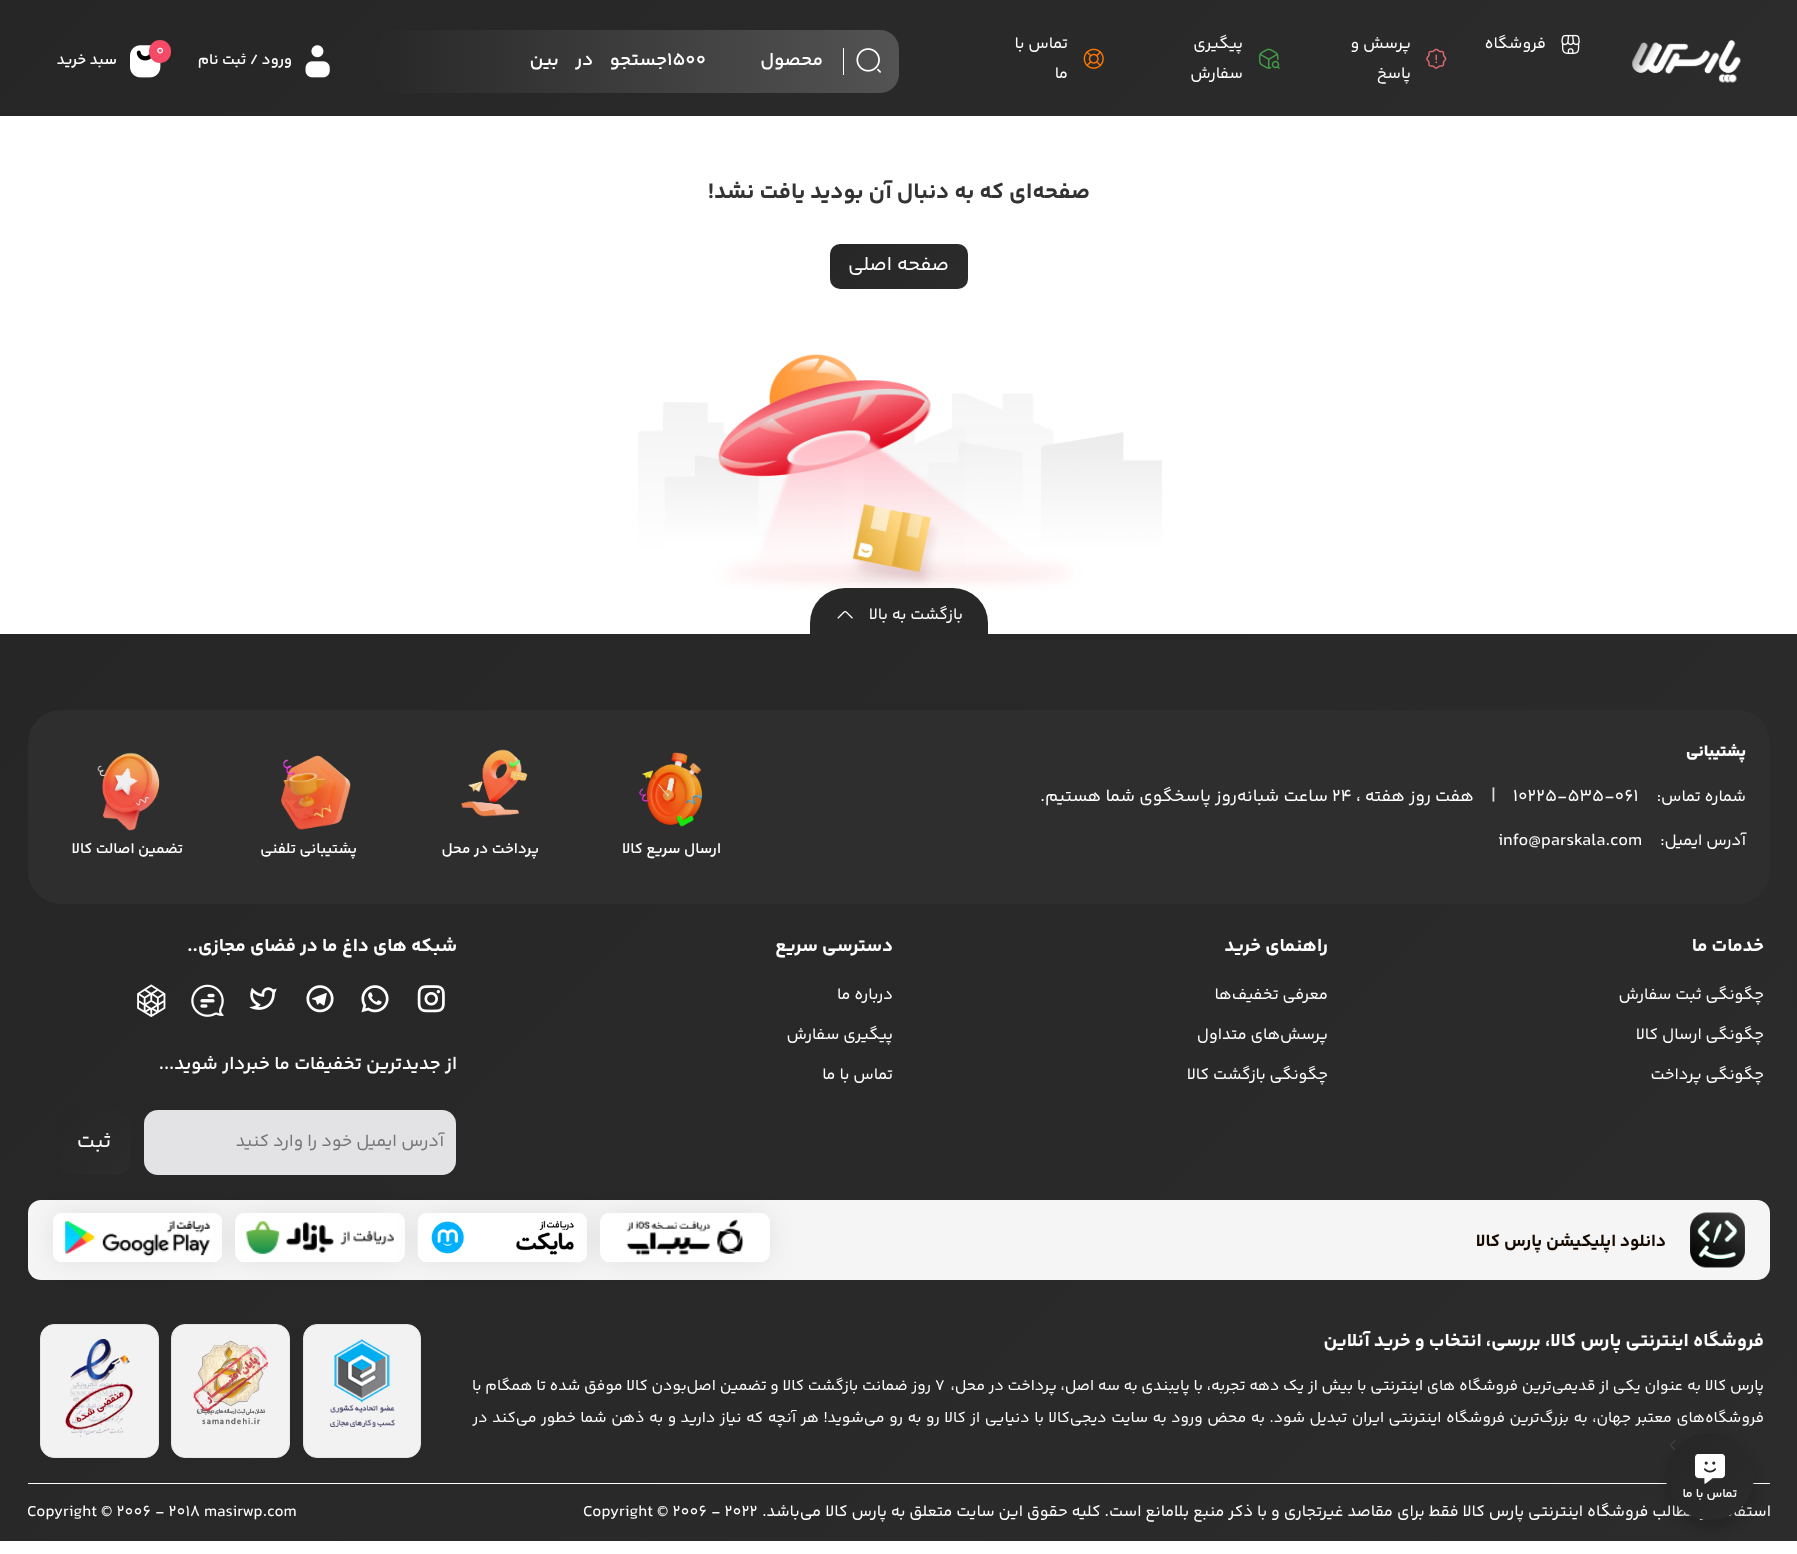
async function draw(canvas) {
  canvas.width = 1797
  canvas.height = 1554
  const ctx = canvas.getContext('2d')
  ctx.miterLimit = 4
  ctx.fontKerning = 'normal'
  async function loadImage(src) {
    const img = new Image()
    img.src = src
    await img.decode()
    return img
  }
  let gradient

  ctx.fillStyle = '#fff'
  ctx.fillRect(0, 0, 1797, 1554)
  gradient = ctx.createLinearGradient(420, -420, 1377, 537)
  gradient.addColorStop(0, '#262626')
  gradient.addColorStop(1, '#2c2c2c')
  ctx.fillStyle = gradient
  ctx.fillRect(0, 0, 1797, 116)
  ctx.drawImage(await loadImage('image0.png'), 1631, 40, 110, 43)
  ctx.drawImage(await loadImage('image1.png'), 1561, 34, 19, 20)
  ctx.direction = 'rtl'
  ctx.font = '16.25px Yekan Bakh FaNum'
  ctx.fillStyle = '#fff'
  ctx.fillText('فروشگاه', 1546, 48)
  ctx.drawImage(await loadImage('image2.png'), 1426, 48, 21, 21)
  ctx.fillText('پرسش و', 1411, 48)
  ctx.fillText('پاسخ', 1411, 78)
  ctx.drawImage(await loadImage('image3.png'), 1259, 48, 21, 21)
  ctx.fillText('پیگیری', 1243, 48)
  ctx.fillText('سفارش', 1243, 78)
  ctx.drawImage(await loadImage('image4.png'), 1083, 48, 21, 21)
  ctx.fillText('تماس با', 1068, 48)
  ctx.fillText('ما', 1068, 78)
  gradient = ctx.createLinearGradient(899, 61, 376, 61)
  gradient.addColorStop(0, '#535353')
  gradient.addColorStop(1, '#282828')
  ctx.fillStyle = gradient
  ctx.beginPath()
  ctx.roundRect(376, 30, 523, 63, 19)
  ctx.fill()
  ctx.drawImage(await loadImage('image5.png'), 856, 48, 25, 25)
  ctx.fillStyle = '#fff'
  ctx.fillRect(843, 48, 1, 27)
  ctx.font = '600 18.75px Yekan Bakh FaNum'
  ctx.fillText('محصول', 823, 65)
  ctx.direction = 'ltr'
  ctx.fillText('1500', 667, 65)
  ctx.wordSpacing = '12px'
  ctx.direction = 'rtl'
  ctx.fillText('جستجو در بین', 667, 65)
  ctx.drawImage(await loadImage('image6.png'), 305, 45, 25, 33)
  ctx.wordSpacing = '0px'
  ctx.font = '600 15px Yekan Bakh FaNum'
  ctx.fillText('ورود / ثبت نام', 292, 64)
  ctx.drawImage(await loadImage('image7.png'), 130, 45, 31, 33)
  ctx.fillStyle = '#f74a67'
  ctx.beginPath()
  ctx.roundRect(149, 40, 22, 23, 11)
  ctx.fill()
  ctx.direction = 'ltr'
  ctx.font = '15px Yekan Bakh FaNum'
  ctx.fillStyle = '#fff'
  ctx.fillText('0', 156, 55)
  ctx.direction = 'rtl'
  ctx.font = '600 15px Yekan Bakh FaNum'
  ctx.fillText('سبد خرید', 117, 64)
  ctx.font = 'bold 22.5px Yekan Bakh FaNum'
  ctx.fillStyle = '#333'
  ctx.fillText('صفحه‌ای که به دنبال آن بودید یافت نشد!', 1090, 198)
  gradient = ctx.createLinearGradient(853, 221, 944, 312)
  gradient.addColorStop(0, '#262626')
  gradient.addColorStop(1, '#2c2c2c')
  ctx.fillStyle = gradient
  ctx.beginPath()
  ctx.roundRect(830, 244, 138, 45, 10)
  ctx.fill()
  ctx.font = '20px Yekan Bakh FaNum'
  ctx.fillStyle = '#fff'
  ctx.fillText('صفحه اصلی', 949, 270)
  ctx.drawImage(await loadImage('image8.png'), 638, 354, 524, 237)
  gradient = ctx.createLinearGradient(222, 411, 1575, 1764)
  gradient.addColorStop(0, '#262626')
  gradient.addColorStop(1, '#2c2c2c')
  ctx.fillStyle = gradient
  ctx.fillRect(0, 634, 1797, 907)
  ctx.fillStyle = '#282828'
  ctx.beginPath()
  ctx.roundRect(810, 588, 178, 51, [35, 35, 0, 0])
  ctx.fill()
  ctx.font = '16.25px Yekan Bakh FaNum'
  ctx.fillStyle = '#fff'
  ctx.fillText('بازگشت به بالا', 963, 619)
  ctx.drawImage(await loadImage('image9.png'), 837, 611, 16, 8)
  ctx.fillStyle = '#2e2e2e'
  ctx.beginPath()
  ctx.roundRect(28, 710, 1742, 194, 33)
  ctx.fill()
  ctx.font = '800 16.25px Yekan Bakh FaNum'
  ctx.fillStyle = '#fff'
  ctx.fillText('پشتیبانی', 1746, 756)
  ctx.font = '16.25px Yekan Bakh FaNum'
  ctx.fillText('شماره تماس:', 1746, 801)
  ctx.direction = 'ltr'
  ctx.font = '17.5px Yekan Bakh FaNum'
  ctx.fillText('10225-535-061', 1513, 801)
  ctx.font = '20px Yekan Bakh FaNum'
  ctx.fillStyle = '#dfdfdf'
  ctx.fillText('|', 1491, 801)
  ctx.direction = 'rtl'
  ctx.font = '17.5px Yekan Bakh FaNum'
  ctx.fillStyle = '#fff'
  ctx.fillText('هفت روز هفته ،', 1474, 801)
  ctx.direction = 'ltr'
  ctx.fillText('24', 1332, 801)
  ctx.direction = 'rtl'
  ctx.fillText('ساعت شبانه‌روز پاسخگوی شما هستیم.', 1328, 801)
  ctx.font = '16.25px Yekan Bakh FaNum'
  ctx.fillText('آدرس ایمیل:', 1746, 845)
  ctx.direction = 'ltr'
  ctx.font = '17.5px Yekan Bakh FaNum'
  ctx.fillText('info@parskala.com', 1498, 845)
  ctx.drawImage(await loadImage('image10.png'), 639, 752, 64, 75)
  ctx.direction = 'rtl'
  ctx.font = '600 15px Yekan Bakh FaNum'
  ctx.fillText('ارسال سریع کالا', 721, 853)
  ctx.drawImage(await loadImage('image11.png'), 461, 749, 67, 68)
  ctx.fillText('پرداخت در محل', 539, 853)
  ctx.drawImage(await loadImage('image12.png'), 281, 755, 70, 75)
  ctx.fillText('پشتیبانی تلفنی', 357, 853)
  ctx.drawImage(await loadImage('image13.png'), 97, 752, 63, 79)
  ctx.fillText('تضمین اصالت کالا', 183, 853)
  ctx.font = 'bold 18.75px Yekan Bakh FaNum'
  ctx.fillText('خدمات ما', 1764, 951)
  ctx.font = '16.25px Yekan Bakh FaNum'
  ctx.fillText('چگونگی ثبت سفارش', 1764, 999)
  ctx.fillText('چگونگی ارسال کالا', 1764, 1039)
  ctx.fillText('چگونگی پرداخت', 1764, 1079)
  ctx.font = 'bold 18.75px Yekan Bakh FaNum'
  ctx.fillText('راهنمای خرید', 1328, 951)
  ctx.font = '16.25px Yekan Bakh FaNum'
  ctx.fillText('معرفی تخفیف‌ها', 1328, 999)
  ctx.fillText('پرسش‌های متداول', 1328, 1039)
  ctx.fillText('چگونگی بازگشت کالا', 1328, 1079)
  ctx.font = 'bold 18.75px Yekan Bakh FaNum'
  ctx.fillText('دسترسی سریع', 893, 951)
  ctx.font = '16.25px Yekan Bakh FaNum'
  ctx.fillText('درباره ما', 893, 999)
  ctx.fillText('پیگیری سفارش', 893, 1039)
  ctx.fillText('تماس با ما', 893, 1079)
  ctx.font = 'bold 18.75px Yekan Bakh FaNum'
  ctx.fillText('شبکه های داغ ما در فضای مجازی..', 457, 951)
  ctx.drawImage(await loadImage('image14.png'), 417, 985, 28, 28)
  ctx.drawImage(await loadImage('image15.png'), 361, 985, 28, 28)
  ctx.drawImage(await loadImage('image16.png'), 306, 985, 28, 28)
  ctx.drawImage(await loadImage('image17.png'), 249, 987, 28, 23)
  ctx.drawImage(await loadImage('image18.png'), 191, 984, 33, 33)
  ctx.drawImage(await loadImage('image19.png'), 137, 984, 29, 33)
  ctx.font = '600 18.75px Yekan Bakh FaNum'
  ctx.fillText('از جدیدترین تخفیفات ما خبردار شوید...', 457, 1069)
  ctx.fillStyle = '#e3e3e6'
  ctx.beginPath()
  ctx.roundRect(144, 1110, 312, 65, 14)
  ctx.fill()
  ctx.font = '17.5px Yekan Bakh FaNum'
  ctx.fillStyle = '#757575'
  ctx.fillText('آدرس ایمیل خود را وارد کنید', 444, 1146)
  gradient = ctx.createLinearGradient(59, 1108, 128, 1177)
  gradient.addColorStop(0, '#262626')
  gradient.addColorStop(1, '#2c2c2c')
  ctx.fillStyle = gradient
  ctx.beginPath()
  ctx.roundRect(58, 1110, 72, 65, 14)
  ctx.fill()
  ctx.font = '21px Yekan Bakh FaNum'
  ctx.fillStyle = '#fff'
  ctx.fillText('ثبت', 111, 1147)
  ctx.fillStyle = '#f5f5f5'
  ctx.beginPath()
  ctx.roundRect(28, 1200, 1742, 80, 13)
  ctx.fill()
  ctx.drawImage(await loadImage('image20.png'), 1690, 1212, 55, 56)
  ctx.font = 'bold 17.5px Yekan Bakh FaNum'
  ctx.fillStyle = '#160900'
  ctx.fillText('دانلود اپلیکیشن پارس کالا', 1666, 1246)
  ctx.fillStyle = '#00000014'
  ctx.filter = 'blur(12.5px)'
  ctx.beginPath()
  ctx.roundRect(53, 1213, 170, 50, 10)
  ctx.fill()
  ctx.filter = 'none'
  ctx.drawImage(await loadImage('image24.png'), 53, 1213, 169, 49)
  ctx.filter = 'blur(12.5px)'
  ctx.beginPath()
  ctx.roundRect(235, 1213, 170, 50, 10)
  ctx.fill()
  ctx.filter = 'none'
  ctx.drawImage(await loadImage('image23.png'), 235, 1213, 170, 49)
  ctx.filter = 'blur(12.5px)'
  ctx.beginPath()
  ctx.roundRect(418, 1213, 170, 50, 10)
  ctx.fill()
  ctx.filter = 'none'
  ctx.drawImage(await loadImage('image22.png'), 417, 1213, 170, 49)
  ctx.filter = 'blur(12.5px)'
  ctx.beginPath()
  ctx.roundRect(600, 1213, 170, 50, 10)
  ctx.fill()
  ctx.filter = 'none'
  ctx.drawImage(await loadImage('image21.png'), 600, 1213, 170, 49)
  ctx.font = 'bold 18.75px Yekan Bakh FaNum'
  ctx.fillStyle = '#fff'
  ctx.fillText('فروشگاه اینترنتی پارس کالا، بررسی، انتخاب و خرید آنلاین', 1764, 1346)
  ctx.font = '15.62px Yekan Bakh FaNum'
  ctx.fillText('پارس کالا به عنوان یکی از قدیمی‌ترین فروشگاه های اینترنتی با بیش از یک دهه تجربه، با پایبندی به سه اصل، پرداخت در محل،', 1764, 1390)
  ctx.direction = 'ltr'
  ctx.fillText('۷', 935, 1390)
  ctx.direction = 'rtl'
  ctx.fillText('روز ضمانت بازگشت کالا و تضمین اصل‌بودن کالا موفق شده تا همگام با', 931, 1390)
  ctx.wordSpacing = '0.8px'
  ctx.fillText('فروشگاه‌های معتبر جهان، به بزرگ‌ترین فروشگاه اینترنتی ایران تبدیل شود. به محض ورود به سایت دیجی‌کالا با دنیایی از کالا رو به رو می‌شوید! هر آنچه که نیاز دارید و به ذهن شما خطور می‌کند در', 1764, 1422)
  ctx.drawImage(await loadImage('image25.png'), 1670, 1440, 6, 10)
  ctx.fillStyle = '#f2f2f2'
  ctx.beginPath()
  ctx.roundRect(303.5, 1324.5, 117, 133, 13.5)
  ctx.fill()
  ctx.strokeStyle = '#e5e5ea'
  ctx.stroke()
  ctx.drawImage(await loadImage('image26.png'), 329, 1339, 66, 88)
  ctx.beginPath()
  ctx.roundRect(171.5, 1324.5, 118, 133, 13.5)
  ctx.fill()
  ctx.stroke()
  ctx.drawImage(await loadImage('image27.png'), 193, 1340, 76, 85)
  ctx.beginPath()
  ctx.roundRect(40.5, 1324.5, 118, 133, 13.5)
  ctx.fill()
  ctx.stroke()
  ctx.drawImage(await loadImage('image28.png'), 65, 1339, 69, 98)
  ctx.fillStyle = '#fff'
  ctx.fillRect(28, 1483, 1742, 1)
  ctx.wordSpacing = '0px'
  ctx.font = '16.25px Yekan Bakh FaNum'
  ctx.fillText('استفاده از مطالب فروشگاه اینترنتی پارس کالا فقط برای مقاصد غیرتجاری و با ذکر منبع بلامانع است. کلیه حقوق این سایت متعلق به پارس کالا می‌باشد.', 1771, 1516)
  ctx.direction = 'ltr'
  ctx.fillText('Copyright © 2006 - 2022', 583, 1516)
  ctx.fillText('Copyright © 2006 - 2018 masirwp.com', 27, 1516)
  ctx.fillStyle = '#00000024'
  ctx.filter = 'blur(5px)'
  ctx.beginPath()
  ctx.roundRect(1664, 1438, 92, 92, 46)
  ctx.fill()
  ctx.filter = 'none'
  gradient = ctx.createLinearGradient(1666, 1433, 1754, 1520)
  gradient.addColorStop(0, '#262626')
  gradient.addColorStop(1, '#2c2c2c')
  ctx.fillStyle = gradient
  ctx.beginPath()
  ctx.roundRect(1666, 1433, 88, 87, 43.5)
  ctx.fill()
  ctx.drawImage(await loadImage('image29.png'), 1695, 1454, 30, 30)
  ctx.direction = 'rtl'
  ctx.font = '600 12.5px Yekan Bakh FaNum'
  ctx.fillStyle = '#fff'
  ctx.fillText('تماس با ما', 1737, 1497)
}

draw(document.querySelector('canvas'))
